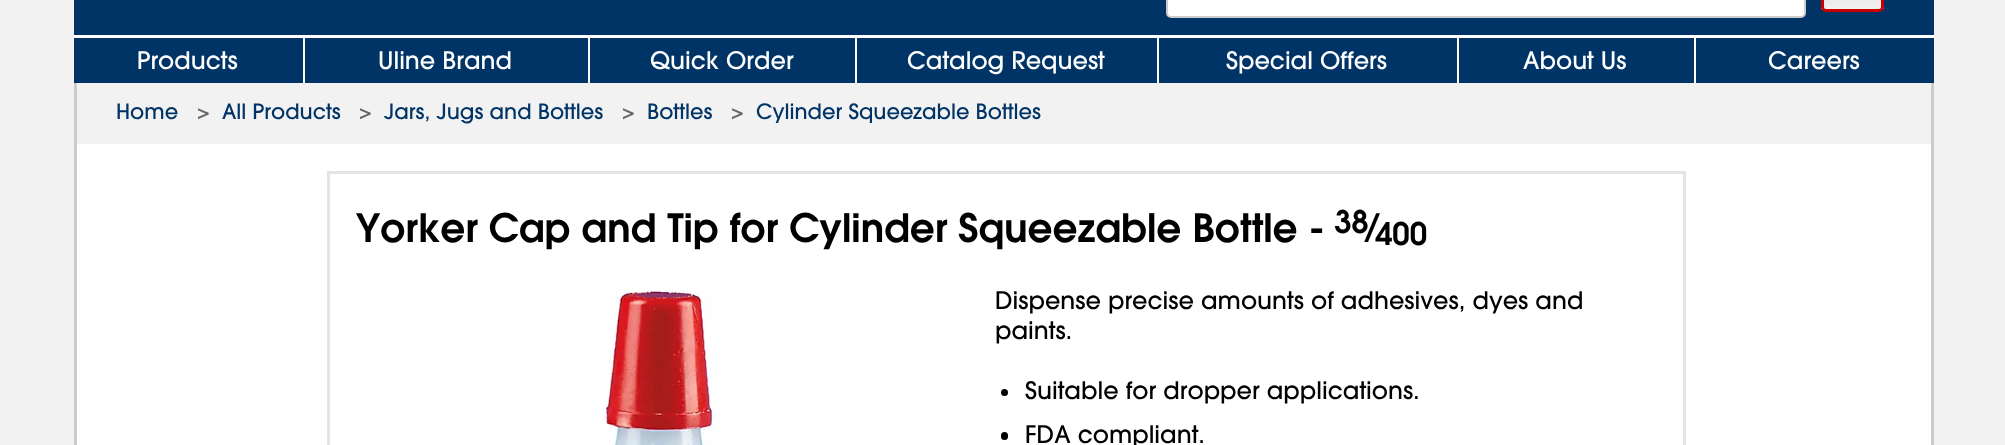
async function draw(canvas) {
  canvas.width = 2005
  canvas.height = 445
  const ctx = canvas.getContext('2d')
  ctx.miterLimit = 4
  ctx.fontKerning = 'normal'
  async function loadImage(src) {
    const img = new Image()
    img.src = src
    await img.decode()
    return img
  }
  let gradient

  ctx.fillStyle = '#f2f2f2'
  ctx.fillRect(0, 0, 2005, 445)
  ctx.fillStyle = '#fff'
  ctx.fillRect(77, 144, 1854, 301)
  ctx.fillStyle = '#036'
  ctx.fillRect(74, 0, 1860, 83)
  ctx.fillStyle = '#fff'
  ctx.beginPath()
  ctx.roundRect(1167, -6, 638, 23, 4)
  ctx.fill()
  ctx.strokeStyle = '#ccc'
  ctx.lineWidth = 2
  ctx.stroke()
  gradient = ctx.createLinearGradient(1853, -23, 1853, 9)
  gradient.addColorStop(0.5, '#fff')
  gradient.addColorStop(0.5, '#e7e7e7')
  gradient.addColorStop(1, '#f1f1f1')
  ctx.fillStyle = gradient
  ctx.fillRect(1821, 0, 63, 9)
  ctx.beginPath()
  ctx.roundRect(1822.5, -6.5, 60, 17, 3.5)
  ctx.strokeStyle = '#c00'
  ctx.lineWidth = 3
  ctx.stroke()
  ctx.fillStyle = '#fff'
  ctx.fillRect(74, 35, 1860, 3)
  ctx.fillRect(303, 38, 2, 45)
  ctx.font = '500 24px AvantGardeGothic'
  ctx.fillText('Products', 137, 69)
  ctx.fillRect(588, 38, 2, 45)
  ctx.fillText('Uline Brand', 378, 69)
  ctx.fillRect(855, 38, 2, 45)
  ctx.fillText('Quick Order', 650, 69)
  ctx.fillRect(1157, 38, 2, 45)
  ctx.fillText('Catalog Request', 907, 69)
  ctx.fillRect(1457, 38, 2, 45)
  ctx.fillText('Special Offers', 1226, 69)
  ctx.fillRect(1694, 38, 2, 45)
  ctx.fillText('About Us', 1523, 69)
  ctx.fillText('Careers', 1768, 69)
  ctx.fillStyle = '#ccc'
  ctx.fillRect(1931, 83, 3, 362)
  ctx.fillRect(74, 83, 3, 362)
  ctx.font = '500 21px AvantGardeGothic'
  ctx.fillStyle = '#036'
  ctx.fillText('Home', 116, 119)
  ctx.fillStyle = '#666'
  ctx.fillText('>', 197, 119)
  ctx.fillStyle = '#036'
  ctx.fillText('All Products', 222, 119)
  ctx.fillStyle = '#666'
  ctx.fillText('>', 359, 119)
  ctx.fillStyle = '#036'
  ctx.fillText('Jars, Jugs and Bottles', 384, 119)
  ctx.fillStyle = '#666'
  ctx.fillText('>', 622, 119)
  ctx.fillStyle = '#036'
  ctx.fillText('Bottles', 647, 119)
  ctx.fillStyle = '#666'
  ctx.fillText('>', 731, 119)
  ctx.fillStyle = '#036'
  ctx.fillText('Cylinder Squeezable Bottles', 756, 119)
  ctx.strokeStyle = '#e5e4e4'
  ctx.strokeRect(328.5, 172.5, 1356, 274)
  ctx.font = '600 39px AvantGardeGothic'
  ctx.fillStyle = '#000'
  ctx.fillText('Yorker Cap and Tip for Cylinder Squeezable Bottle -', 356, 242)
  ctx.font = '600 31px AvantGardeGothic'
  ctx.fillText('38', 1334, 233)
  ctx.font = '600 39px AvantGardeGothic'
  ctx.fillText('⁄', 1369, 242)
  ctx.font = '600 31px AvantGardeGothic'
  ctx.fillText('400', 1375, 245)
  ctx.drawImage(await loadImage('image0.png'), 604, 290, 112, 155)
  ctx.font = '500 24px AvantGardeGothic'
  ctx.fillText('Dispense precise amounts of adhesives, dyes and', 995, 309)
  ctx.fillText('paints.', 995, 339)
  ctx.beginPath()
  ctx.arc(1004.5, 392.5, 3.5, 0, 2 * Math.PI)
  ctx.fill()
  ctx.fillText('Suitable for dropper applications.', 1025, 399)
  ctx.beginPath()
  ctx.roundRect(1001, 432, 7, 8, 3.5)
  ctx.fill()
  ctx.fillText('FDA compliant.', 1025, 443)
}

draw(document.querySelector('canvas'))
